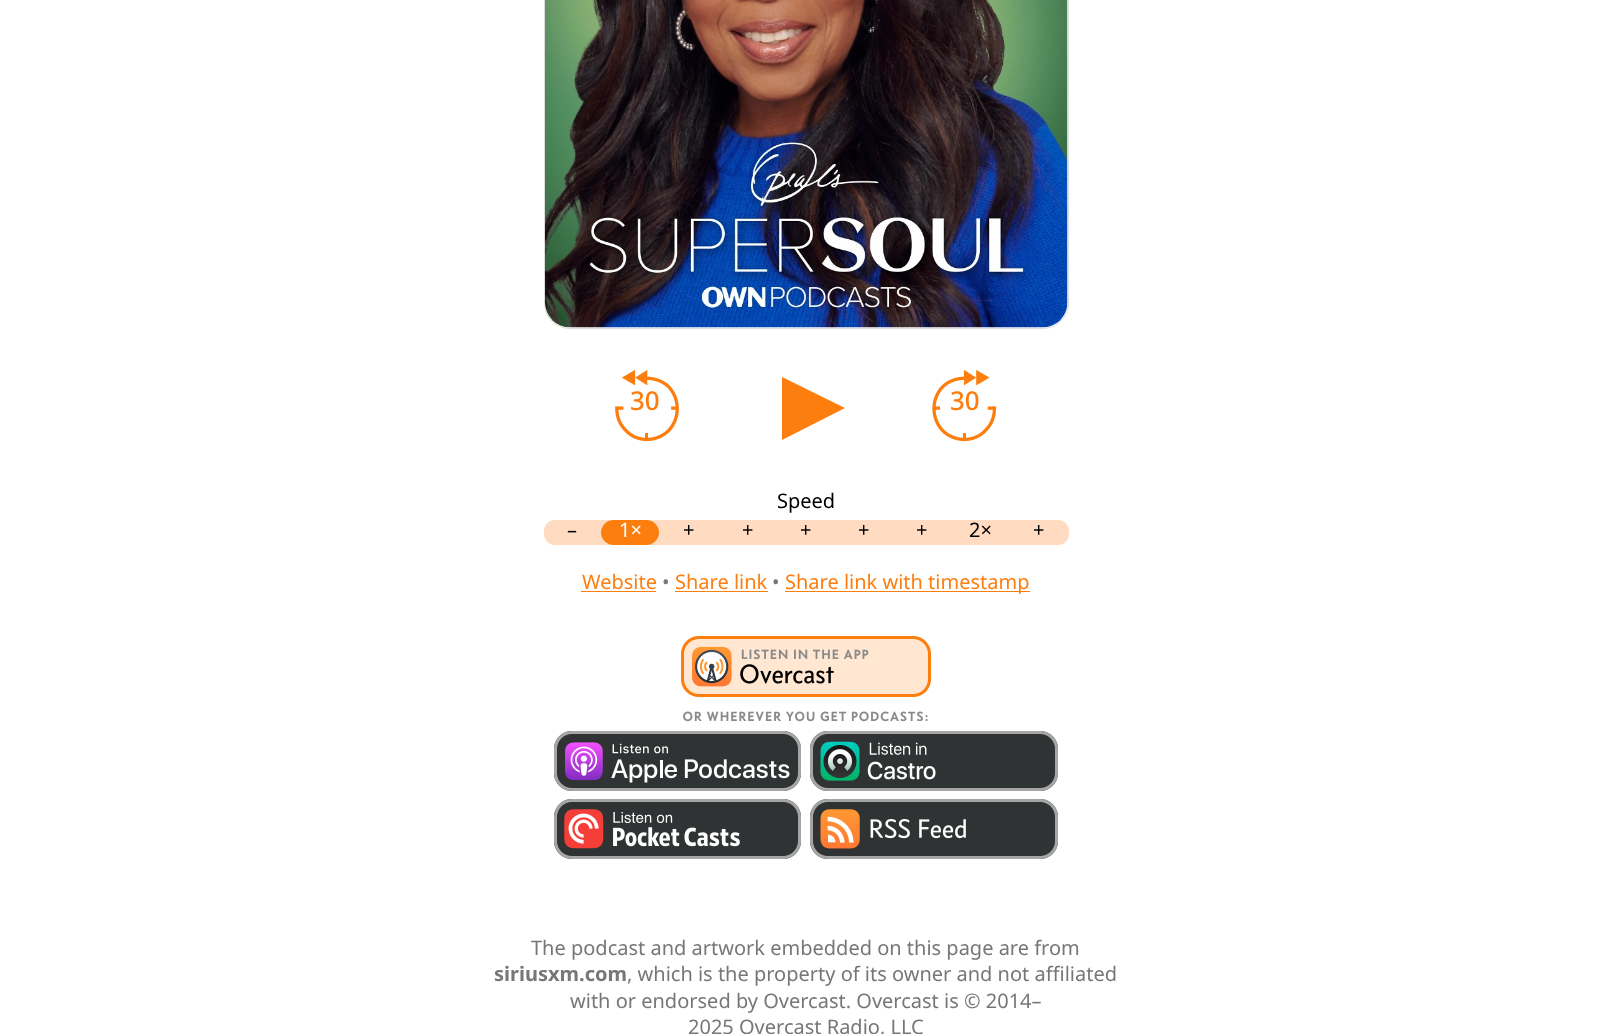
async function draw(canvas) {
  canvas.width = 1611
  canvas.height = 1034
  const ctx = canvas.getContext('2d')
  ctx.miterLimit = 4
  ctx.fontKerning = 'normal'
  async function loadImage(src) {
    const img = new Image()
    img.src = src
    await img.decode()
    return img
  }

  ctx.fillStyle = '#fff'
  ctx.fillRect(0, 0, 1611, 1034)
  ctx.beginPath()
  ctx.roundRect(544.5, -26.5, 524, 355, 25.5)
  ctx.strokeStyle = '#ddd'
  ctx.stroke()
  ctx.drawImage(await loadImage('image0.png'), 545, 0, 523, 328)
  ctx.drawImage(await loadImage('image1.png'), 615, 370, 64, 72)
  ctx.font = '500 26px Noto Sans'
  ctx.fillStyle = '#fc7e0f'
  ctx.fillText('30', 630, 410)
  ctx.beginPath()
  ctx.moveTo(782, 377)
  ctx.lineTo(845, 408)
  ctx.lineTo(782, 440)
  ctx.closePath()
  ctx.fill()
  ctx.drawImage(await loadImage('image2.png'), 932, 370, 65, 72)
  ctx.fillText('30', 950, 410)
  ctx.font = '20px Noto Sans'
  ctx.fillStyle = '#000'
  ctx.fillText('Speed', 777, 508)
  ctx.fillStyle = '#ffdbc1'
  ctx.beginPath()
  ctx.roundRect(544, 520, 525, 25, 11)
  ctx.fill()
  ctx.fillStyle = '#fc7e0f'
  ctx.beginPath()
  ctx.roundRect(601, 520, 58, 25, 12.5)
  ctx.fill()
  ctx.fillStyle = '#000'
  ctx.fillText('–', 567, 537)
  ctx.fillStyle = '#fff'
  ctx.fillText('1×', 619, 537)
  ctx.fillStyle = '#000'
  ctx.fillText('+', 683, 537)
  ctx.fillText('+', 742, 537)
  ctx.fillText('+', 800, 537)
  ctx.fillText('+', 858, 537)
  ctx.fillText('+', 916, 537)
  ctx.fillText('2×', 969, 537)
  ctx.fillText('+', 1033, 537)
  ctx.fillStyle = '#fc7e0f'
  ctx.fillText('Website', 582, 589)
  ctx.fillRect(581, 591, 75, 1)
  ctx.fillStyle = '#777'
  ctx.fillText('•', 662, 589)
  ctx.fillStyle = '#fc7e0f'
  ctx.fillText('Share link', 675, 589)
  ctx.fillRect(675, 591, 93, 1)
  ctx.fillStyle = '#777'
  ctx.fillText('•', 772, 589)
  ctx.fillStyle = '#fc7e0f'
  ctx.fillRect(785, 591, 245, 1)
  ctx.fillText('Share link with timestamp', 785, 589)
  ctx.drawImage(await loadImage('image3.png'), 681, 636, 250, 86)
  ctx.drawImage(await loadImage('image4.png'), 554, 731, 247, 60)
  ctx.drawImage(await loadImage('image5.png'), 810, 731, 248, 60)
  ctx.drawImage(await loadImage('image6.png'), 554, 799, 247, 60)
  ctx.drawImage(await loadImage('image7.png'), 810, 799, 248, 60)
  ctx.fillStyle = '#777'
  ctx.fillText('The podcast and artwork embedded on this page are from', 531, 955)
  ctx.font = 'bold 20px Noto Sans'
  ctx.fillText('siriusxm.com', 494, 981)
  ctx.font = '20px Noto Sans'
  ctx.fillText(', which is the property of its owner and not affiliated', 627, 981)
  ctx.fillText('with or endorsed by Overcast. Overcast is © 2014–', 570, 1008)
  ctx.fillText('2025 Overcast Radio, LLC', 688, 1034)
}

draw(document.querySelector('canvas'))
